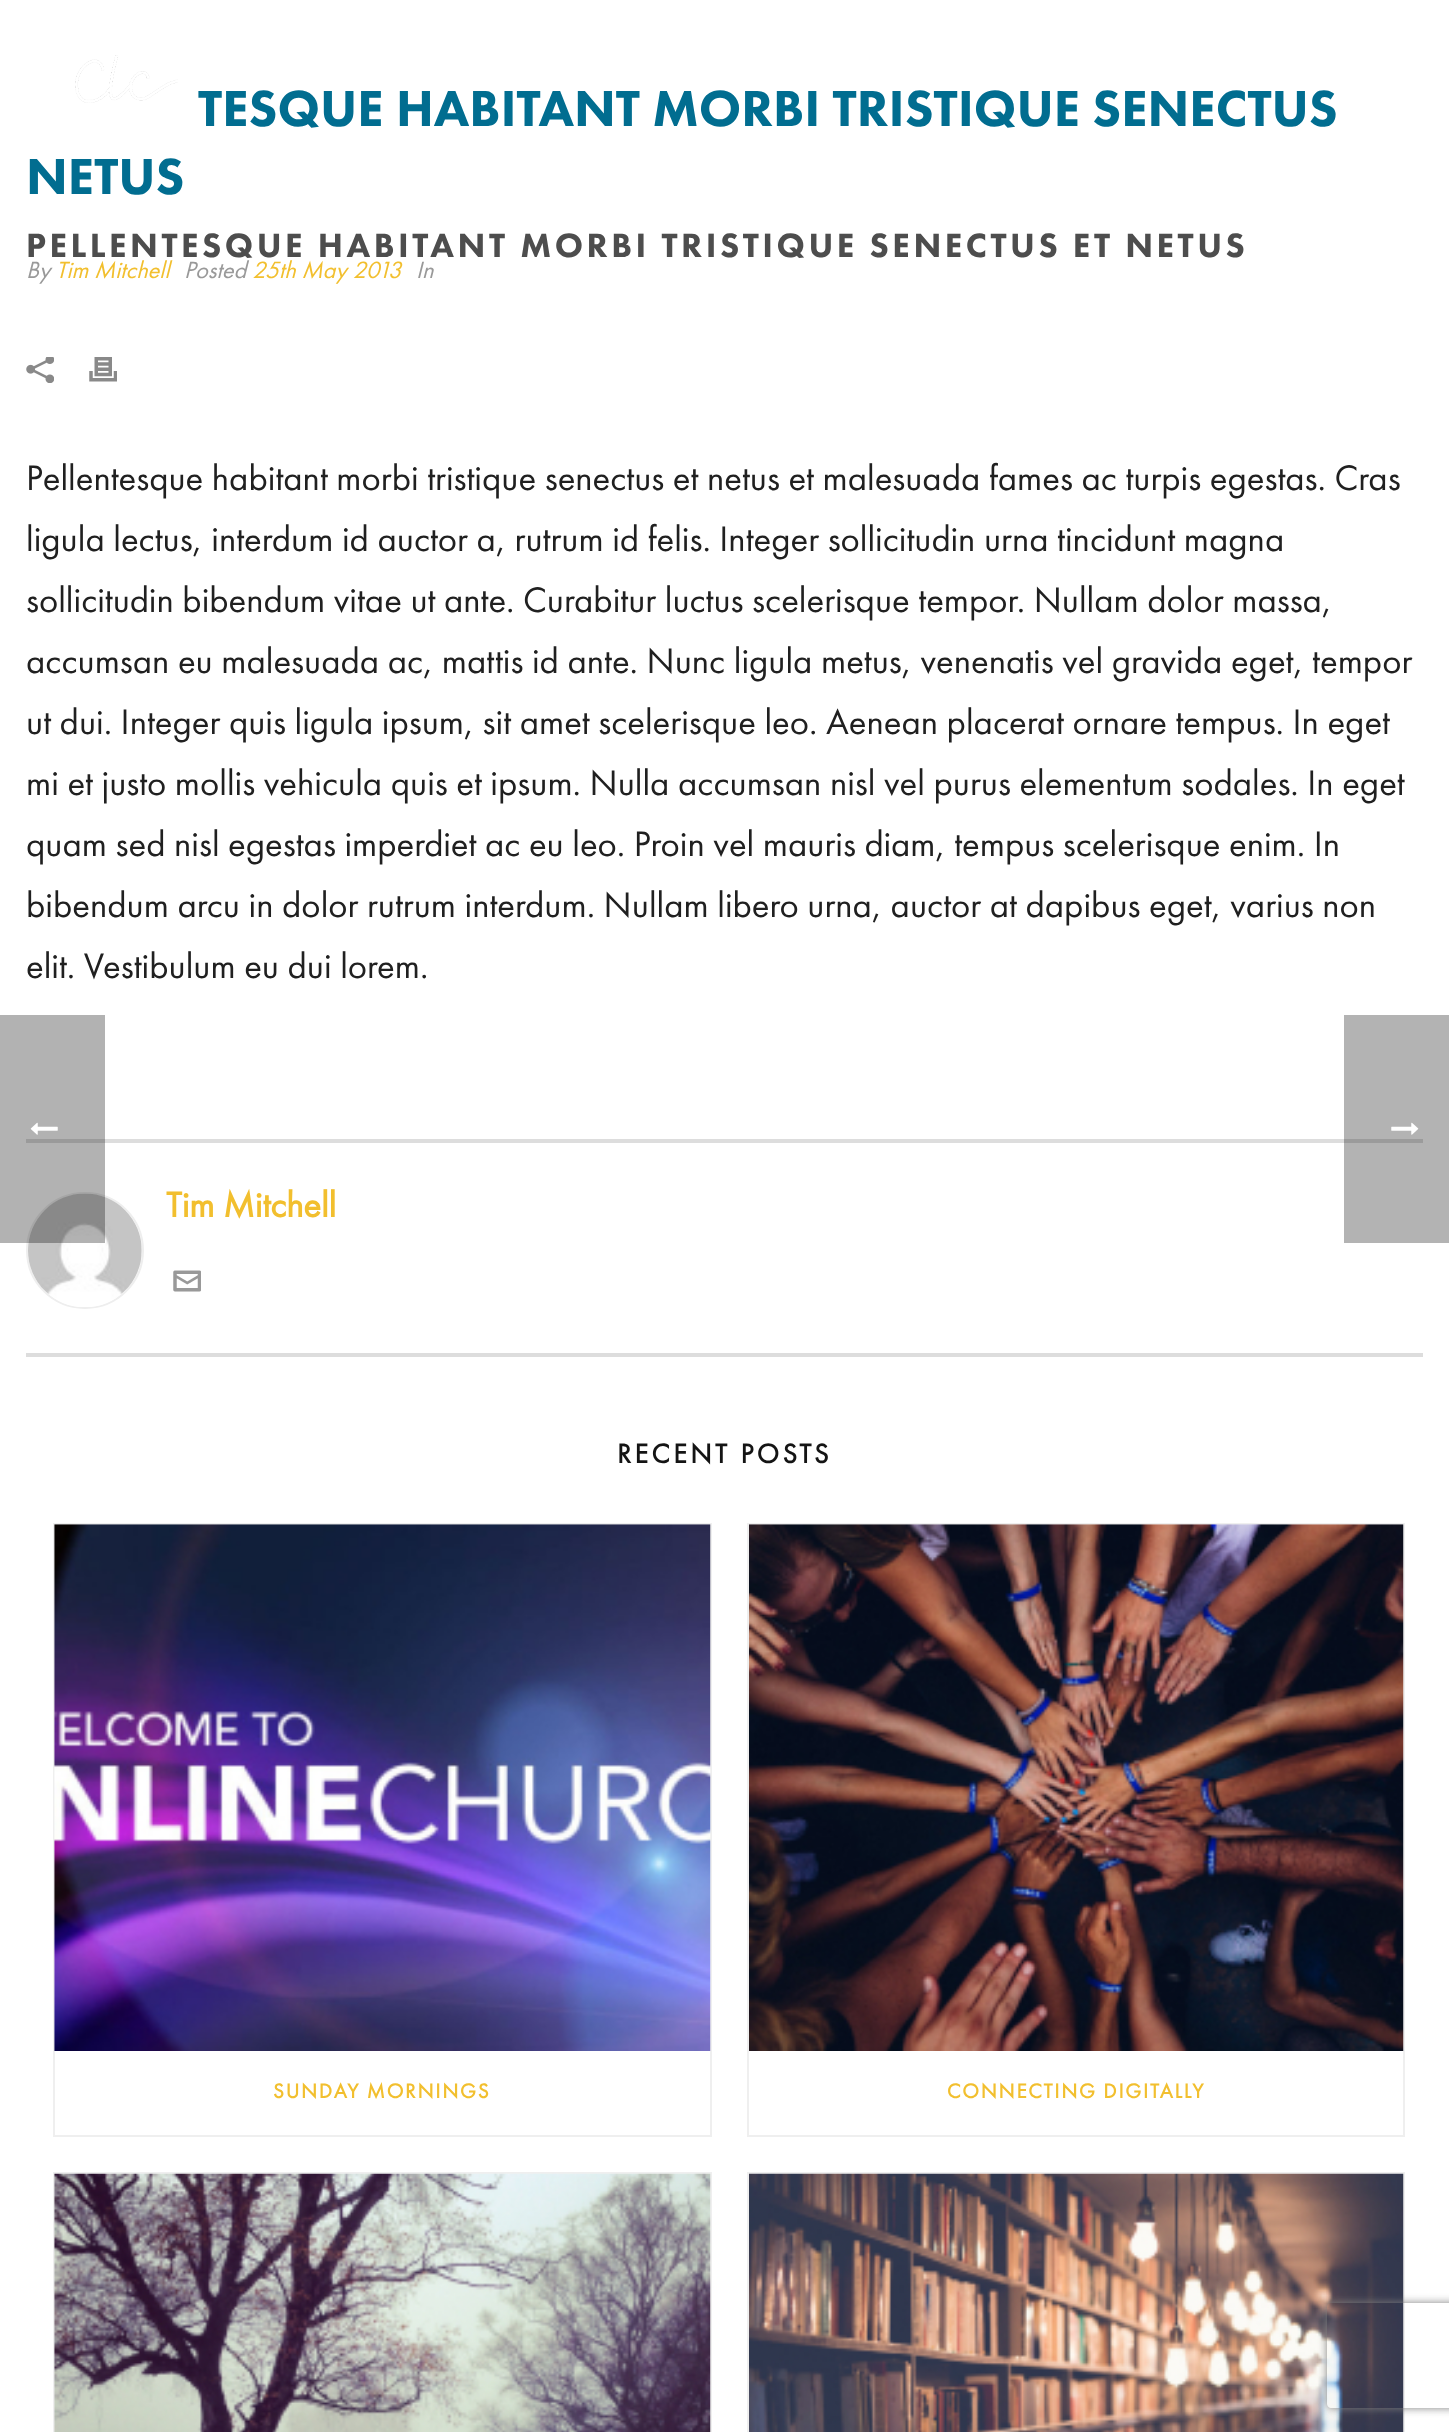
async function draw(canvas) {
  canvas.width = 1449
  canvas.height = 2432
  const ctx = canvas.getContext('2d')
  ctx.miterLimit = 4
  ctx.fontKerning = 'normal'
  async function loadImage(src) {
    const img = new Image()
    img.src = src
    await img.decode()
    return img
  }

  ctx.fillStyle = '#fff'
  ctx.fillRect(0, 0, 1449, 2432)
  ctx.font = '900 52.5px Futura PT'
  ctx.fillStyle = '#016d90'
  ctx.fillText('TESQUE HABITANT MORBI TRISTIQUE SENECTUS', 198, 126)
  ctx.fillText('NETUS', 26, 194)
  ctx.font = 'italic 24.5px Futura PT'
  ctx.fillStyle = '#999'
  ctx.fillText('By', 26, 278)
  ctx.fillStyle = '#f2bf2e'
  ctx.fillText('Tim Mitchell', 56, 278)
  ctx.fillStyle = '#999'
  ctx.fillText('Posted', 184, 278)
  ctx.fillStyle = '#f2bf2e'
  ctx.fillText('25th May 2013', 252, 278)
  ctx.fillStyle = '#999'
  ctx.fillText('In', 416, 278)
  ctx.drawImage(await loadImage('image0.png'), 26, 357, 28, 26)
  ctx.drawImage(await loadImage('image1.png'), 89, 357, 28, 25)
  ctx.font = '36.75px Futura PT'
  ctx.fillStyle = '#202020'
  ctx.fillText('Pellentesque habitant morbi tristique senectus et netus et malesuada fames ac turpis egestas. Cras', 26, 490)
  ctx.fillText('ligula lectus, interdum id auctor a, rutrum id felis. Integer sollicitudin urna tincidunt magna', 26, 551)
  ctx.fillText('sollicitudin bibendum vitae ut ante. Curabitur luctus scelerisque tempor. Nullam dolor massa,', 26, 612)
  ctx.fillText('accumsan eu malesuada ac, mattis id ante. Nunc ligula metus, venenatis vel gravida eget, tempor', 26, 673)
  ctx.fillText('ut dui. Integer quis ligula ipsum, sit amet scelerisque leo. Aenean placerat ornare tempus. In eget', 26, 734)
  ctx.fillText('mi et justo mollis vehicula quis et ipsum. Nulla accumsan nisl vel purus elementum sodales. In eget', 26, 795)
  ctx.fillText('quam sed nisl egestas imperdiet ac eu leo. Proin vel mauris diam, tempus scelerisque enim. In', 26, 856)
  ctx.fillText('bibendum arcu in dolor rutrum interdum. Nullam libero urna, auctor at dapibus eget, varius non', 26, 917)
  ctx.fillText('elit. Vestibulum eu dui lorem.', 26, 978)
  ctx.fillStyle = '#ddd'
  ctx.fillRect(26, 1139, 1318, 4)
  ctx.fillStyle = '#b3b3b3'
  ctx.fillRect(1344, 1015, 105, 228)
  ctx.fillStyle = '#9b9b9b'
  ctx.fillRect(1344, 1139, 79, 4)
  ctx.fillStyle = '#ddd'
  ctx.fillRect(26, 1353, 1397, 4)
  ctx.beginPath()
  ctx.roundRect(27, 1193, 116, 115, 57.5)
  ctx.strokeStyle = '#eee'
  ctx.lineWidth = 2
  ctx.stroke()
  ctx.drawImage(await loadImage('image2.png'), 28, 1193, 114, 114)
  ctx.font = 'bold 36.75px Futura PT'
  ctx.fillStyle = '#f2bf2e'
  ctx.fillText('Tim Mitchell', 166, 1217)
  ctx.drawImage(await loadImage('image3.png'), 173, 1270, 28, 22)
  ctx.letterSpacing = '3.5px'
  ctx.font = 'bold 28px Futura PT'
  ctx.fillStyle = '#141414'
  ctx.fillText('RECENT POSTS', 617, 1463)
  ctx.strokeStyle = '#efefef'
  ctx.strokeRect(54, 1524, 657, 612)
  ctx.drawImage(await loadImage('image4.png'), 54, 1524, 657, 527)
  ctx.letterSpacing = '1.75px'
  ctx.font = 'bold 21px Futura PT'
  ctx.fillStyle = '#f2bf2e'
  ctx.fillText('SUNDAY MORNINGS', 273, 2098)
  ctx.strokeRect(748, 1524, 656, 612)
  ctx.drawImage(await loadImage('image5.png'), 749, 1524, 655, 527)
  ctx.fillText('CONNECTING DIGITALLY', 947, 2098)
  ctx.strokeRect(54, 2173, 657, 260)
  ctx.drawImage(await loadImage('image6.png'), 54, 2173, 657, 259)
  ctx.strokeRect(748, 2173, 656, 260)
  ctx.drawImage(await loadImage('image7.png'), 749, 2173, 655, 259)
  ctx.drawImage(await loadImage('image8.png'), 50, 55, 128, 71)
  ctx.letterSpacing = '3.5px'
  ctx.font = '900 35px Futura PT'
  ctx.fillStyle = '#4d4d4d'
  ctx.fillText('PELLENTESQUE HABITANT MORBI TRISTIQUE SENECTUS ET NETUS', 26, 257)
  ctx.fillStyle = '#0000004d'
  ctx.fillRect(0, 1015, 105, 228)
  ctx.drawImage(await loadImage('image9.png'), 30, 1122, 28, 13)
  ctx.drawImage(await loadImage('image10.png'), 1391, 1122, 28, 13)
  ctx.save()
  ctx.beginPath()
  ctx.moveTo(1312, 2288)
  ctx.lineTo(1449, 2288)
  ctx.lineTo(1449, 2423)
  ctx.lineTo(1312, 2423)
  ctx.closePath()
  ctx.moveTo(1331, 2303)
  ctx.lineTo(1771, 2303)
  ctx.bezierCurveTo(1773, 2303, 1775, 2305, 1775, 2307)
  ctx.lineTo(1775, 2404)
  ctx.bezierCurveTo(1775, 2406, 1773, 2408, 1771, 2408)
  ctx.lineTo(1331, 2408)
  ctx.bezierCurveTo(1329, 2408, 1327, 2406, 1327, 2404)
  ctx.lineTo(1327, 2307)
  ctx.bezierCurveTo(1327, 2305, 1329, 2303, 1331, 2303)
  ctx.closePath()
  ctx.clip('evenodd')
  ctx.fillStyle = '#808080'
  ctx.filter = 'blur(4.5px)'
  ctx.beginPath()
  ctx.roundRect(1327, 2303, 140, 105, 4)
  ctx.fill()
  ctx.filter = 'none'
  ctx.restore()
}

draw(document.querySelector('canvas'))
